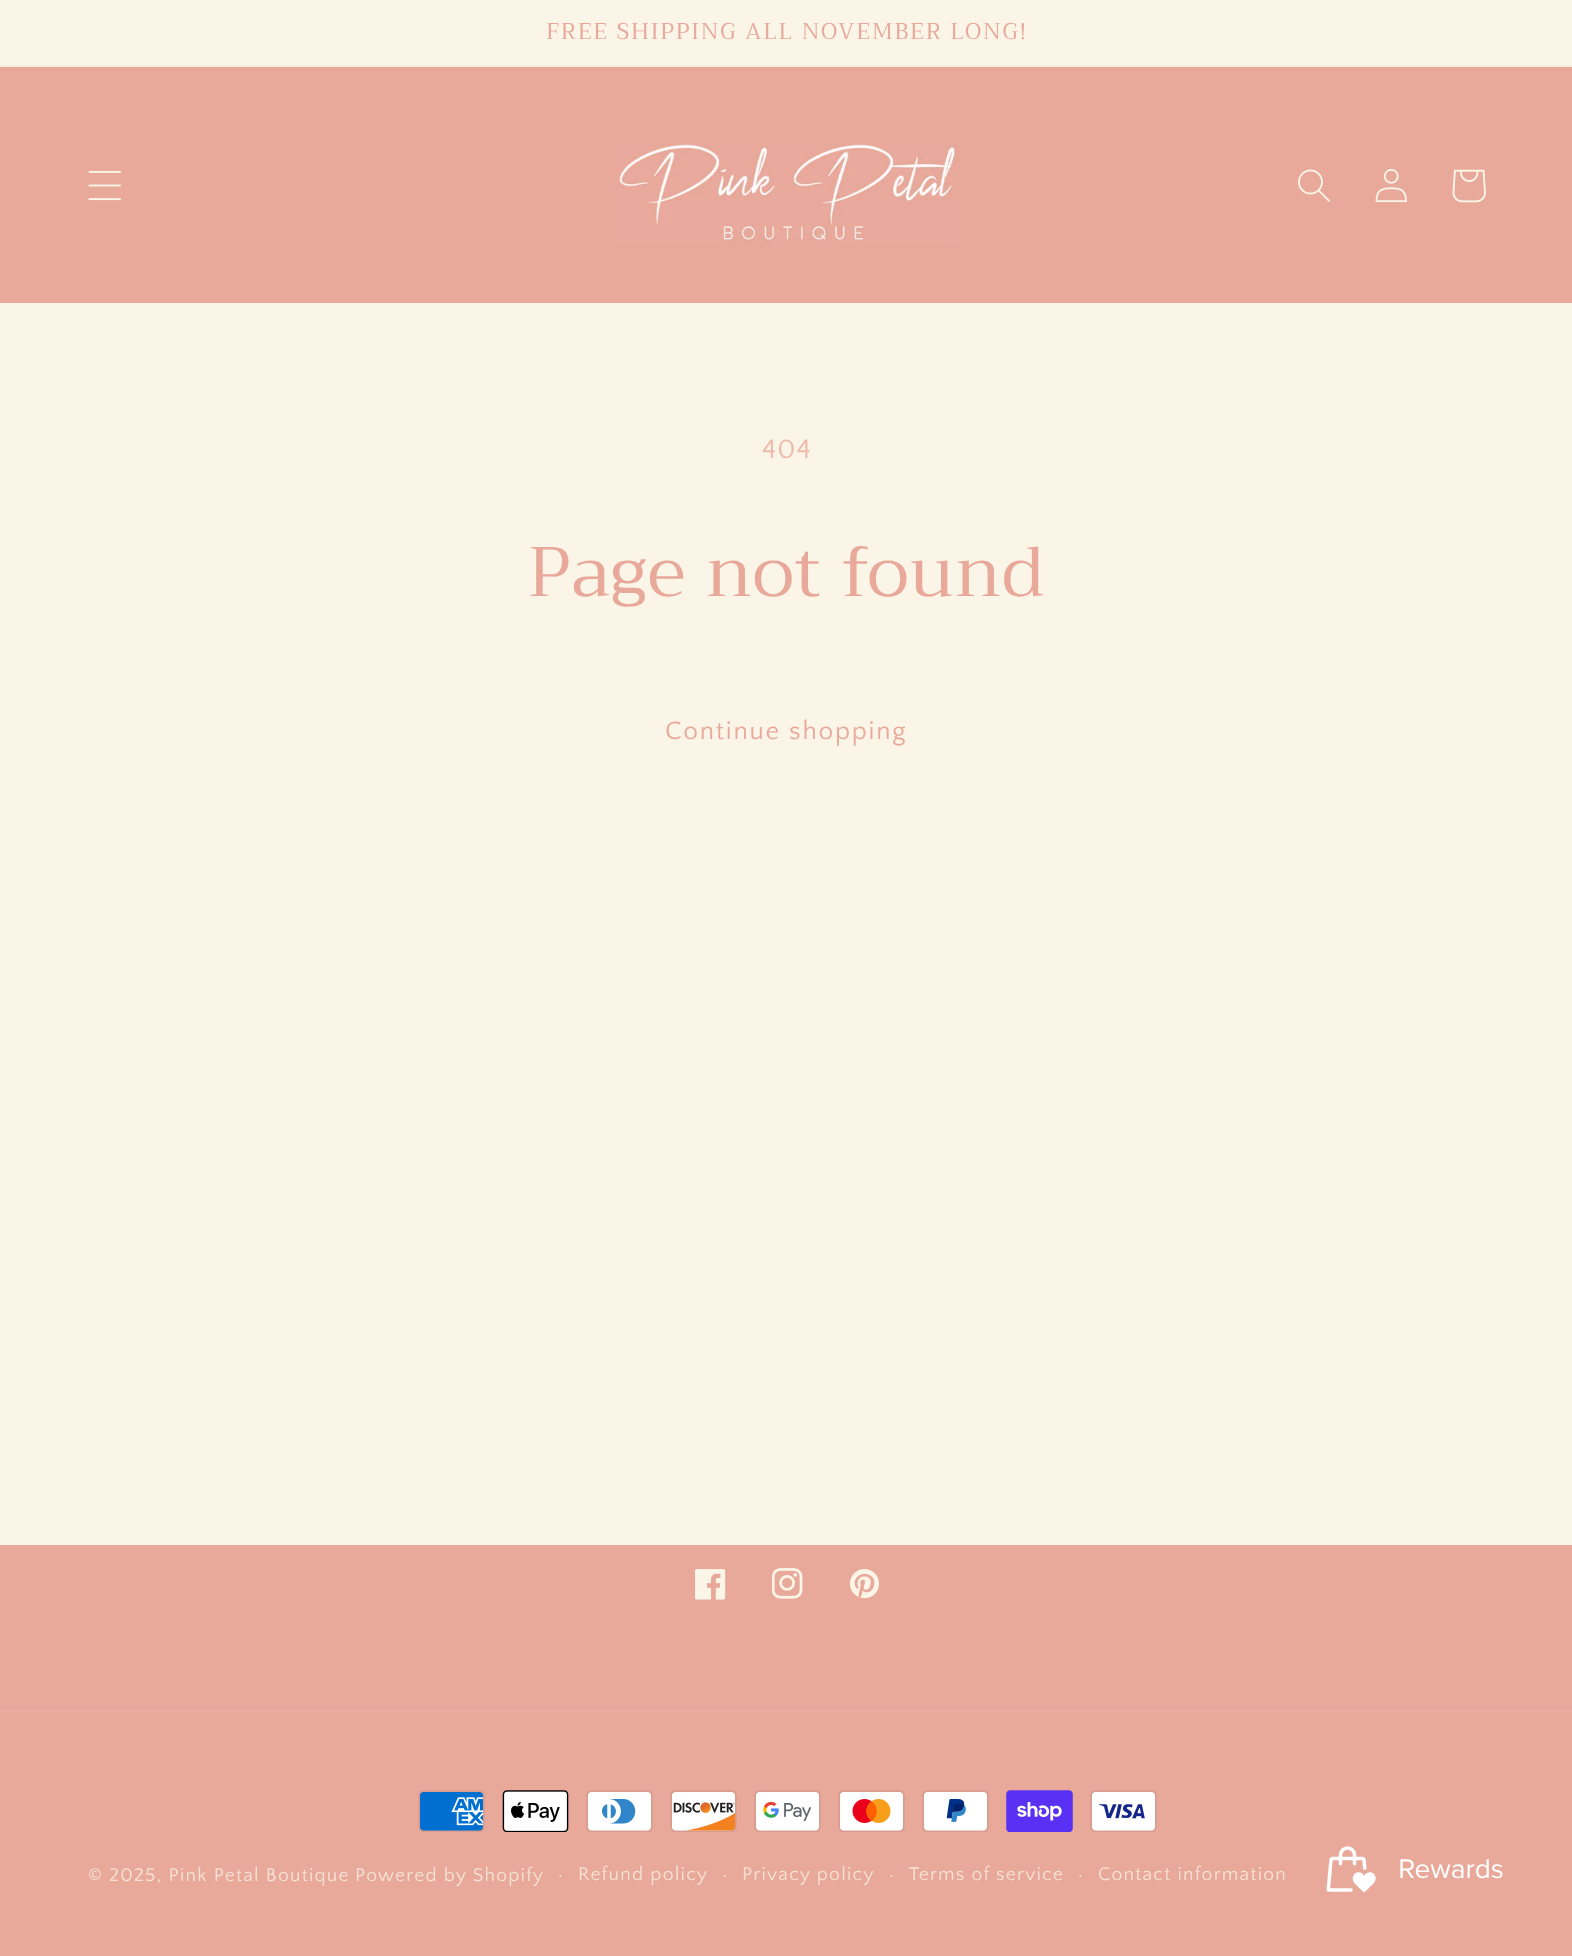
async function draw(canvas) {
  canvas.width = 1572
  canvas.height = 1956
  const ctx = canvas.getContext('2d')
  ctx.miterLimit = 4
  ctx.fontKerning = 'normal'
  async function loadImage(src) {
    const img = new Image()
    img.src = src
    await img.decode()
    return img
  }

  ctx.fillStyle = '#faf5e7'
  ctx.fillRect(0, 0, 1572, 1956)
  ctx.fillStyle = '#f9efe1'
  ctx.fillRect(0, 65, 1572, 2)
  ctx.letterSpacing = '1.75px'
  ctx.font = '22.75px Trirong'
  ctx.fillStyle = '#e8a99b'
  ctx.fillText('FREE SHIPPING ALL NOVEMBER LONG!', 546, 39)
  ctx.fillRect(0, 67, 1572, 236)
  ctx.drawImage(await loadImage('image0.png'), 88, 170, 33, 31)
  ctx.drawImage(await loadImage('image1.png'), 618, 143, 340, 100)
  ctx.drawImage(await loadImage('image2.png'), 1298, 169, 32, 33)
  ctx.drawImage(await loadImage('image3.png'), 1375, 169, 32, 34)
  ctx.drawImage(await loadImage('image4.png'), 1452, 169, 34, 34)
  ctx.letterSpacing = '1px'
  ctx.font = '28px Quattrocento Sans'
  ctx.fillStyle = '#edbcae'
  ctx.fillText('404', 762, 458)
  ctx.font = '70px Trirong'
  ctx.fillStyle = '#e8a99b'
  ctx.fillText('Page not found', 528, 596)
  ctx.letterSpacing = '1.75px'
  ctx.font = '26.25px Quattrocento Sans'
  ctx.fillText('Continue shopping', 665, 739)
  ctx.fillRect(0, 1545, 1572, 411)
  ctx.drawImage(await loadImage('image5.png'), 695, 1569, 31, 31)
  ctx.drawImage(await loadImage('image6.png'), 772, 1568, 31, 31)
  ctx.drawImage(await loadImage('image7.png'), 849, 1569, 30, 30)
  ctx.fillStyle = '#e9afa1'
  ctx.fillRect(0, 1710, 1572, 2)
  ctx.drawImage(await loadImage('image8.png'), 418, 1790, 67, 42)
  ctx.drawImage(await loadImage('image9.png'), 502, 1790, 67, 42)
  ctx.drawImage(await loadImage('image10.png'), 586, 1790, 67, 42)
  ctx.drawImage(await loadImage('image11.png'), 670, 1790, 67, 42)
  ctx.drawImage(await loadImage('image12.png'), 754, 1790, 67, 42)
  ctx.drawImage(await loadImage('image13.png'), 838, 1790, 67, 42)
  ctx.drawImage(await loadImage('image14.png'), 922, 1790, 67, 42)
  ctx.drawImage(await loadImage('image15.png'), 1006, 1790, 67, 42)
  ctx.drawImage(await loadImage('image16.png'), 1090, 1790, 67, 42)
  ctx.letterSpacing = '1.25px'
  ctx.font = '19.25px Quattrocento Sans'
  ctx.fillStyle = '#f6e2d4'
  ctx.fillText('© 2025, Pink Petal Boutique', 88, 1881)
  ctx.fillText('Powered by Shopify', 355, 1881)
  ctx.font = '21px Quattrocento Sans'
  ctx.fillText('·', 558, 1881)
  ctx.font = '19.25px Quattrocento Sans'
  ctx.fillText('Refund policy', 578, 1880)
  ctx.font = '21px Quattrocento Sans'
  ctx.fillText('·', 722, 1881)
  ctx.font = '19.25px Quattrocento Sans'
  ctx.fillText('Privacy policy', 742, 1880)
  ctx.font = '21px Quattrocento Sans'
  ctx.fillText('·', 889, 1881)
  ctx.font = '19.25px Quattrocento Sans'
  ctx.fillText('Terms of service', 909, 1880)
  ctx.font = '21px Quattrocento Sans'
  ctx.fillText('·', 1078, 1881)
  ctx.font = '19.25px Quattrocento Sans'
  ctx.fillText('Contact information', 1098, 1880)
  ctx.drawImage(await loadImage('image17.png'), 1326, 1846, 177, 47)
}

draw(document.querySelector('canvas'))
